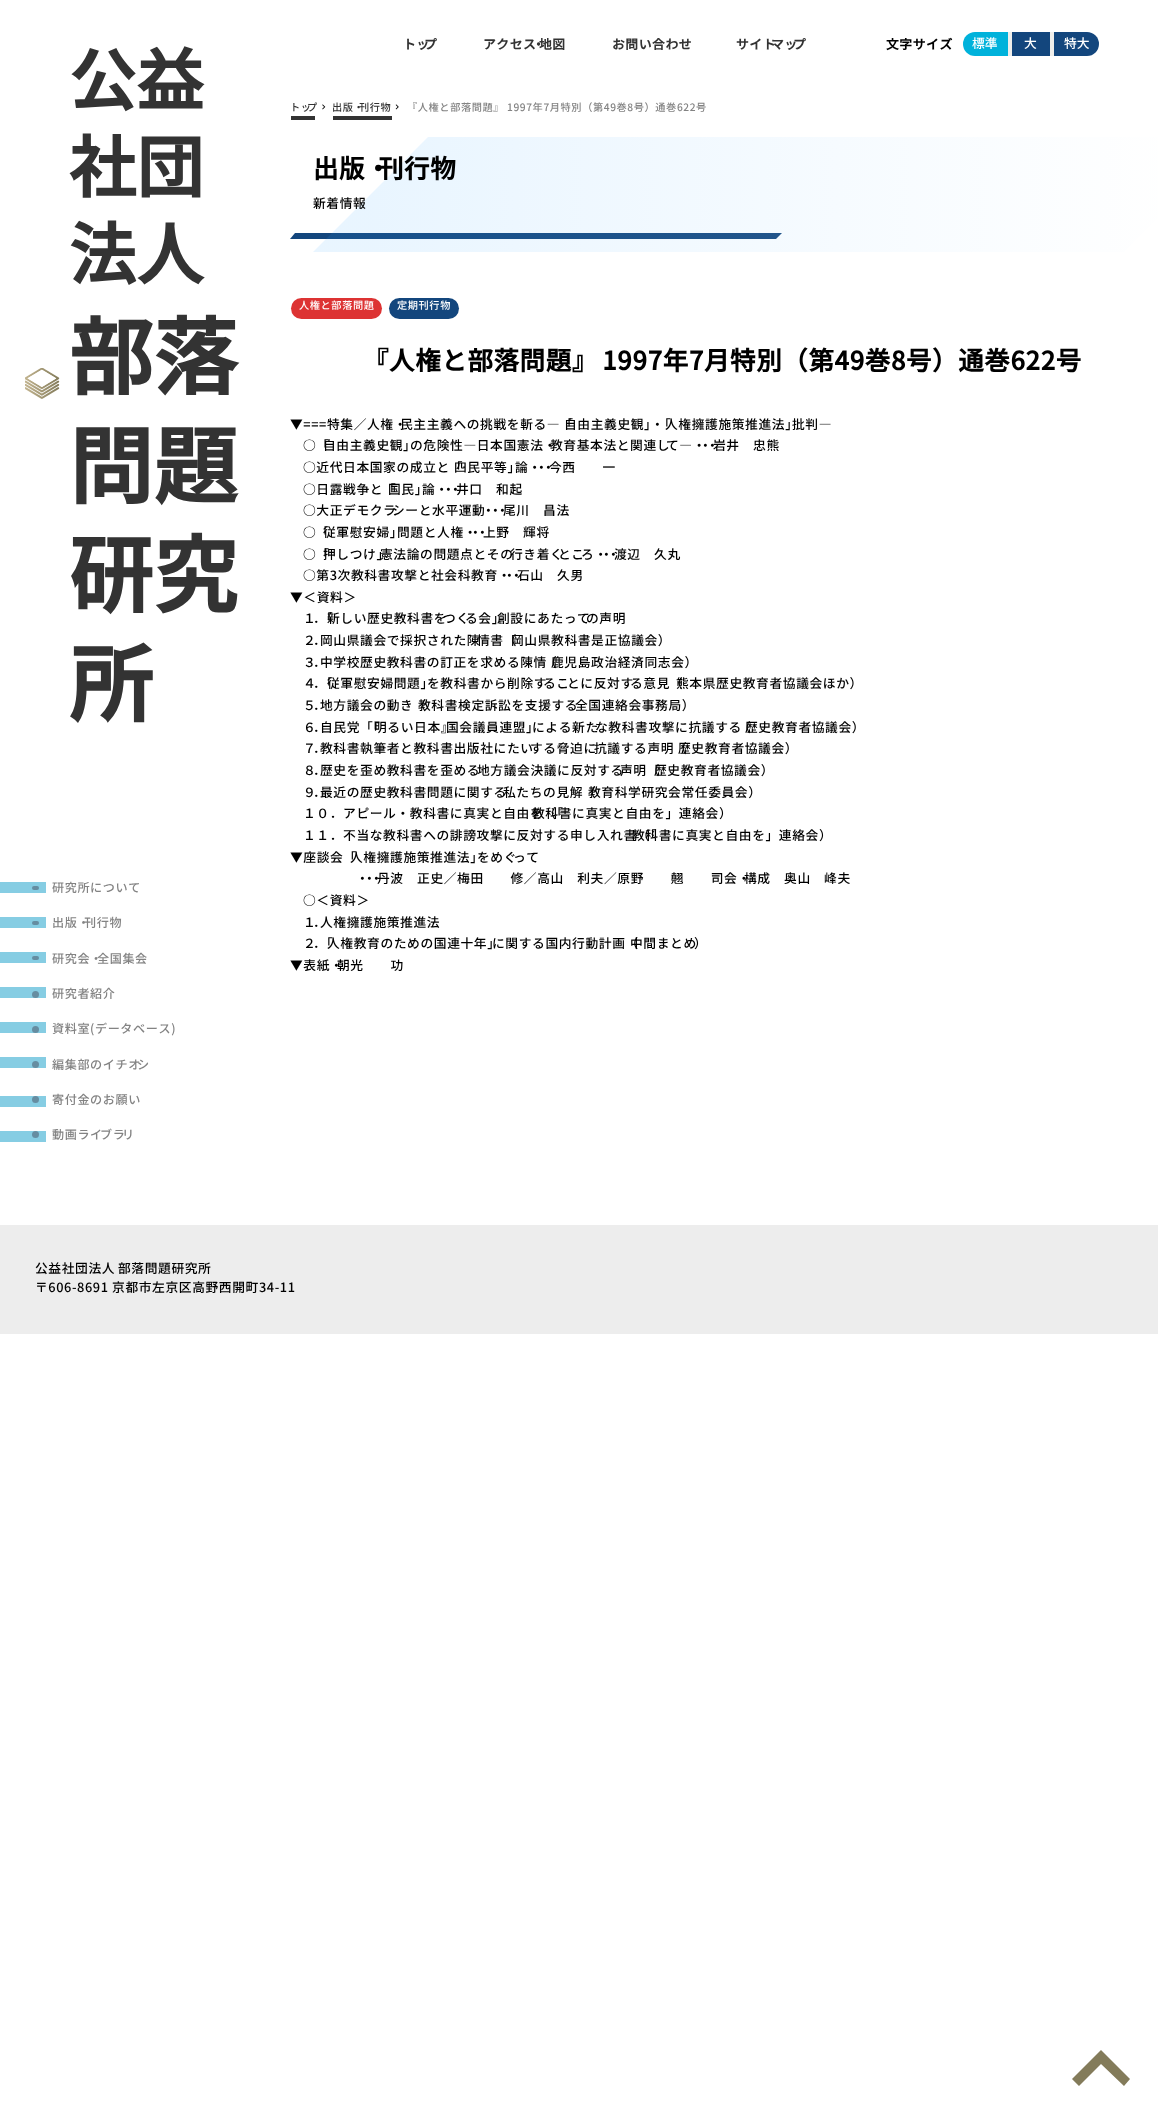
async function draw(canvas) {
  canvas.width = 1158
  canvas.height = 2118
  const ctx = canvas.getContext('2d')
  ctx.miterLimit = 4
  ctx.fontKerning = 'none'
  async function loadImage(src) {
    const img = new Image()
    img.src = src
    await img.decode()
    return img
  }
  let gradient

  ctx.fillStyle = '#fff'
  ctx.fillRect(0, 0, 1158, 2118)
  ctx.drawImage(await loadImage('image0.png'), 25, 368, 35, 31)
  ctx.letterSpacing = '0.6px'
  ctx.font = 'bold 67px Noto Sans JP'
  ctx.fillStyle = '#333'
  ctx.fillText('公益', 69, 105)
  ctx.fillText('社団', 69, 192)
  ctx.fillText('法人', 69, 279)
  ctx.font = 'bold 84px Noto Sans JP'
  ctx.fillText('部落', 69, 388)
  ctx.fillText('問題', 69, 497)
  ctx.fillText('研究', 69, 606)
  ctx.fillText('所', 69, 715)
  ctx.fillStyle = '#86cde3'
  ctx.fillRect(0, 882, 46, 11)
  ctx.font = '100 12.1px Noto Sans JP'
  ctx.fillStyle = '#838383'
  ctx.fillText('研究所について', 52, 892)
  ctx.fillStyle = '#668da1'
  ctx.beginPath()
  ctx.roundRect(32, 886, 7, 4, 2)
  ctx.fill()
  ctx.fillStyle = '#86cde3'
  ctx.fillRect(0, 917, 46, 11)
  ctx.fillStyle = '#838383'
  ctx.fillText('出版・', 52, 927)
  ctx.fillText('刊行物', 84, 927)
  ctx.fillStyle = '#668da1'
  ctx.beginPath()
  ctx.roundRect(32, 921, 7, 4, 2)
  ctx.fill()
  ctx.fillStyle = '#86cde3'
  ctx.fillRect(0, 952, 46, 11)
  ctx.fillStyle = '#838383'
  ctx.fillText('研究会・', 52, 963)
  ctx.fillText('全国集会', 97, 963)
  ctx.fillStyle = '#668da1'
  ctx.beginPath()
  ctx.roundRect(32, 956, 7, 4, 2)
  ctx.fill()
  ctx.fillStyle = '#86cde3'
  ctx.fillRect(0, 987, 46, 11)
  ctx.fillStyle = '#838383'
  ctx.fillText('研究者紹介', 52, 998)
  ctx.fillStyle = '#668da1'
  ctx.beginPath()
  ctx.arc(35.5, 994.5, 3.5, 0, 2 * Math.PI)
  ctx.fill()
  ctx.fillStyle = '#86cde3'
  ctx.fillRect(0, 1022, 46, 11)
  ctx.fillStyle = '#838383'
  ctx.fillText('資料室(データベース)', 52, 1033)
  ctx.fillStyle = '#668da1'
  ctx.beginPath()
  ctx.arc(35.5, 1029.5, 3.5, 0, 2 * Math.PI)
  ctx.fill()
  ctx.fillStyle = '#86cde3'
  ctx.fillRect(0, 1057, 46, 11)
  ctx.fillStyle = '#838383'
  ctx.fillText('編集部のイチオ', 52, 1069)
  ctx.fillText('シ', 137, 1069)
  ctx.fillStyle = '#668da1'
  ctx.beginPath()
  ctx.arc(35.5, 1064.5, 3.5, 0, 2 * Math.PI)
  ctx.fill()
  ctx.fillStyle = '#86cde3'
  ctx.fillRect(0, 1096, 46, 11)
  ctx.fillStyle = '#838383'
  ctx.fillText('寄付金のお願い', 52, 1104)
  ctx.fillStyle = '#668da1'
  ctx.beginPath()
  ctx.arc(35.5, 1099.5, 3.5, 0, 2 * Math.PI)
  ctx.fill()
  ctx.fillStyle = '#86cde3'
  ctx.fillRect(0, 1131, 46, 11)
  ctx.fillStyle = '#838383'
  ctx.fillText('動画ライ', 52, 1139)
  ctx.fillText('ブラ', 100, 1139)
  ctx.fillText('リ', 122, 1139)
  ctx.fillStyle = '#668da1'
  ctx.beginPath()
  ctx.arc(35.5, 1134.5, 3.5, 0, 2 * Math.PI)
  ctx.fill()
  ctx.font = 'bold 12.75px Noto Sans JP'
  ctx.fillStyle = '#333'
  ctx.fillText('トッ', 403, 49)
  ctx.fillText('プ', 424, 49)
  ctx.fillText('アクセス', 483, 49)
  ctx.fillText('・', 532, 49)
  ctx.fillText('地図', 539, 49)
  ctx.fillText('お問い合わせ', 612, 49)
  ctx.fillText('サイト', 736, 49)
  ctx.fillText('マッ', 771, 49)
  ctx.fillText('プ', 793, 49)
  ctx.fillStyle = '#000'
  ctx.fillText('文字サイズ', 886, 49)
  ctx.fillStyle = '#00b2db'
  ctx.beginPath()
  ctx.roundRect(963, 32, 45, 24, [12, 0, 0, 12])
  ctx.fill()
  ctx.letterSpacing = '0px'
  ctx.font = '100 12.75px Noto Sans JP'
  ctx.fillStyle = '#fff'
  ctx.fillText('標準', 972, 48)
  ctx.fillStyle = '#13467d'
  ctx.fillRect(1012, 32, 38, 24)
  ctx.fillStyle = '#efeeeb'
  ctx.fillRect(1050, 32, 4, 24)
  ctx.fillRect(1008, 32, 4, 24)
  ctx.fillStyle = '#fff'
  ctx.fillText('大', 1024, 48)
  ctx.fillStyle = '#13467d'
  ctx.beginPath()
  ctx.roundRect(1054, 32, 45, 24, [0, 12, 12, 0])
  ctx.fill()
  ctx.fillStyle = '#fff'
  ctx.fillText('特大', 1064, 48)
  ctx.letterSpacing = '0.6px'
  ctx.font = '100 10.2px Noto Sans JP'
  ctx.fillStyle = '#333'
  ctx.fillText('トッ', 290, 111)
  ctx.fillText('プ', 307, 111)
  ctx.fillRect(291, 116, 24, 4)
  ctx.drawImage(await loadImage('image1.png'), 322, 104, 4, 6)
  ctx.fillText('出版・', 332, 111)
  ctx.fillText('刊行物', 359, 111)
  ctx.fillRect(333, 116, 59, 4)
  ctx.drawImage(await loadImage('image2.png'), 395, 104, 4, 6)
  ctx.font = '100 10.2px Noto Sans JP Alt'
  ctx.fillStyle = '#838383'
  ctx.fillText('『人権と部落問題』 1997年7月特別（第49巻8号）通巻622号', 407, 111)
  ctx.fillStyle = '#13467d'
  ctx.beginPath()
  ctx.moveTo(295, 233)
  ctx.lineTo(782, 233)
  ctx.lineTo(776, 239)
  ctx.lineTo(290, 239)
  ctx.closePath()
  ctx.fill()
  gradient = ctx.createLinearGradient(370, 194, 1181, 194)
  gradient.addColorStop(0, '#35a5ff1c')
  gradient.addColorStop(1, '#ffffff1a')
  ctx.fillStyle = gradient
  ctx.beginPath()
  ctx.moveTo(428, 137)
  ctx.lineTo(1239, 137)
  ctx.lineTo(1124, 252)
  ctx.lineTo(313, 252)
  ctx.closePath()
  ctx.fill()
  ctx.font = 'bold 25.5px Noto Sans JP'
  ctx.fillStyle = '#000'
  ctx.fillText('出版・', 313, 178)
  ctx.fillText('刊行物', 378, 178)
  ctx.font = '100 12.75px Noto Sans JP'
  ctx.fillText('新着情報', 313, 208)
  ctx.fillStyle = '#d33'
  ctx.beginPath()
  ctx.roundRect(291, 298, 91, 21, 10.5)
  ctx.fill()
  ctx.font = '100 10.2px Noto Sans JP'
  ctx.fillStyle = '#fff'
  ctx.fillText('人権と部落問題', 299, 309)
  ctx.fillStyle = '#13467d'
  ctx.beginPath()
  ctx.roundRect(389, 298, 70, 21, 10.5)
  ctx.fill()
  ctx.fillStyle = '#fff'
  ctx.fillText('定期刊行物', 397, 309)
  ctx.wordSpacing = '-2px'
  ctx.font = 'bold 25.5px Noto Sans JP Alt'
  ctx.fillStyle = '#000'
  ctx.fillText('『人権と部落問題』 1997年7月特別（第49巻8号）通巻622号', 363, 370)
  ctx.wordSpacing = '0px'
  ctx.font = '100 12.75px Noto Sans JP'
  ctx.fillText('▼===特集／人権・', 290, 429)
  ctx.fillText('民主主義への挑戦を斬る―「', 400, 429)
  ctx.fillText('自由主義史観」', 564, 429)
  ctx.fillText('・', 651, 429)
  ctx.fillText('「', 658, 429)
  ctx.fillText('人権擁護施策推進法」', 665, 429)
  ctx.fillText('批判―', 792, 429)
  ctx.fillText('○「', 303, 450)
  ctx.fillText('自由主義史観」', 323, 450)
  ctx.fillText('の危険性―日本国憲法・', 410, 450)
  ctx.fillText('教育基本法と関連し', 550, 450)
  ctx.fillText('て―・', 666, 450)
  ctx.fillText('・', 699, 450)
  ctx.fillText('・', 706, 450)
  ctx.fillText('岩井　忠熊', 713, 450)
  ctx.fillText('○近代日本国家の成立と「', 303, 472)
  ctx.fillText('四民平等」', 454, 472)
  ctx.fillText('論・', 515, 472)
  ctx.fillText('・', 535, 472)
  ctx.fillText('・', 542, 472)
  ctx.fillText('今西　　一', 549, 472)
  ctx.fillText('○日露戦争と「', 303, 494)
  ctx.fillText('国民」', 388, 494)
  ctx.fillText('論・', 422, 494)
  ctx.fillText('・', 442, 494)
  ctx.fillText('・', 449, 494)
  ctx.fillText('井口　和起', 456, 494)
  ctx.fillText('○大正デモクラ', 303, 515)
  ctx.fillText('シーと水平運動', 392, 515)
  ctx.fillText('・', 482, 515)
  ctx.fillText('・', 489, 515)
  ctx.fillText('・', 496, 515)
  ctx.fillText('尾川　昌法', 503, 515)
  ctx.fillText('○「', 303, 537)
  ctx.fillText('従軍慰安婦」', 323, 537)
  ctx.fillText('問題と人権・', 397, 537)
  ctx.fillText('・', 469, 537)
  ctx.fillText('・', 476, 537)
  ctx.fillText('上野　輝将', 483, 537)
  ctx.fillText('○「', 303, 559)
  ctx.fillText('押しつけ」', 323, 559)
  ctx.fillText('憲法論の問題点とその', 380, 559)
  ctx.fillText('行き着く', 510, 559)
  ctx.fillText('とこ', 558, 559)
  ctx.fillText('ろ・', 581, 559)
  ctx.fillText('・', 600, 559)
  ctx.fillText('・', 607, 559)
  ctx.fillText('渡辺　久丸', 614, 559)
  ctx.fillText('○第3次教科書攻撃と社会科教育・', 303, 580)
  ctx.fillText('・', 503, 580)
  ctx.fillText('・', 510, 580)
  ctx.fillText('石山　久男', 517, 580)
  ctx.fillText('▼＜資料＞', 290, 602)
  ctx.fillText('１', 303, 623)
  ctx.fillText('．', 313, 623)
  ctx.fillText('「', 320, 623)
  ctx.fillText('新しい歴史教科書を', 327, 623)
  ctx.fillText('つく', 443, 623)
  ctx.fillText('る会」', 465, 623)
  ctx.fillText('創設にあたって', 497, 623)
  ctx.fillText('の声明', 586, 623)
  ctx.fillText('２', 303, 645)
  ctx.fillText('．', 313, 645)
  ctx.fillText('岡山県議会で採択された陳', 320, 645)
  ctx.fillText('情書（', 477, 645)
  ctx.fillText('岡山県教科書是正協議会）', 511, 645)
  ctx.fillText('３', 303, 667)
  ctx.fillText('．', 313, 667)
  ctx.fillText('中学校歴史教科書の訂正を求める陳情', 320, 667)
  ctx.fillText('（', 544, 667)
  ctx.fillText('鹿児島政治経済同志会）', 551, 667)
  ctx.fillText('４', 303, 688)
  ctx.fillText('．', 313, 688)
  ctx.fillText('「', 320, 688)
  ctx.fillText('従軍慰安婦問題」', 327, 688)
  ctx.fillText('を教科書から削除す', 427, 688)
  ctx.fillText('るこ', 543, 688)
  ctx.fillText('とに反対す', 567, 688)
  ctx.fillText('る意見（', 630, 688)
  ctx.fillText('熊本県歴史教育者協議会ほか）', 676, 688)
  ctx.fillText('５', 303, 710)
  ctx.fillText('．', 313, 710)
  ctx.fillText('地方議会の動き（', 320, 710)
  ctx.fillText('教科書検定訴訟を支援する', 418, 710)
  ctx.fillText('全国連絡会事務局）', 575, 710)
  ctx.fillText('６', 303, 732)
  ctx.fillText('．', 313, 732)
  ctx.fillText('自民党「', 320, 732)
  ctx.fillText('『', 367, 732)
  ctx.fillText('明るい日本』', 374, 732)
  ctx.fillText('国会議員連盟」', 446, 732)
  ctx.fillText('による新た', 532, 732)
  ctx.fillText('な教科書攻撃に抗議する', 595, 732)
  ctx.fillText('（', 738, 732)
  ctx.fillText('歴史教育者協議会）', 745, 732)
  ctx.fillText('７', 303, 753)
  ctx.fillText('．', 313, 753)
  ctx.fillText('教科書執筆者と教科書出版社にたい', 320, 753)
  ctx.fillText('する脅迫に', 530, 753)
  ctx.fillText('抗議する声明（', 594, 753)
  ctx.fillText('歴史教育者協議会）', 678, 753)
  ctx.fillText('８', 303, 775)
  ctx.fillText('．', 313, 775)
  ctx.fillText('歴史を歪め教科書を歪める', 320, 775)
  ctx.fillText('地方議会決議に反対する', 477, 775)
  ctx.fillText('声明（', 620, 775)
  ctx.fillText('歴史教育者協議会）', 654, 775)
  ctx.fillText('９', 303, 797)
  ctx.fillText('．', 313, 797)
  ctx.fillText('最近の歴史教科書問題に関する', 320, 797)
  ctx.fillText('私たちの見解（', 503, 797)
  ctx.fillText('教育科学研究会常任委員会）', 588, 797)
  ctx.font = '100 12.75px Noto Sans JP Alt'
  ctx.fillText('１０．アピール・教科書に真実と自由を（「', 303, 818)
  ctx.fillText('教科書に真実と自由を」連絡会）', 532, 818)
  ctx.fillText('１１．不当な教科書への誹謗攻撃に反対する申し入れ書（「', 303, 840)
  ctx.fillText('教科書に真実と自由を」連絡会）', 632, 840)
  ctx.font = '100 12.75px Noto Sans JP'
  ctx.fillText('▼座談会「', 290, 862)
  ctx.fillText('人権擁護施策推進法」', 350, 862)
  ctx.fillText('をめぐ', 477, 862)
  ctx.fillText('って', 513, 862)
  ctx.fillText('・', 356, 883)
  ctx.fillText('・', 363, 883)
  ctx.fillText('・', 370, 883)
  ctx.fillText('丹波　正史／梅田　　修／高山　利夫／原野　　翹　　司会・', 377, 883)
  ctx.fillText('構成　奥山　峰夫', 744, 883)
  ctx.fillText('○＜資料＞', 303, 905)
  ctx.fillText('１', 303, 927)
  ctx.fillText('．', 313, 927)
  ctx.fillText('人権擁護施策推進法', 320, 927)
  ctx.fillText('２', 303, 948)
  ctx.fillText('．', 313, 948)
  ctx.fillText('「', 320, 948)
  ctx.fillText('人権教育のための国連十年」', 327, 948)
  ctx.fillText('に関する国内行動計画（', 492, 948)
  ctx.fillText('中間まとめ', 630, 948)
  ctx.fillText('）', 694, 948)
  ctx.fillText('▼表紙・', 290, 970)
  ctx.fillText('朝光　　功', 337, 970)
  ctx.fillStyle = '#ededed'
  ctx.fillRect(0, 1225, 1158, 109)
  ctx.fillStyle = '#000'
  ctx.fillText('公益社団法人', 35, 1273)
  ctx.fillText('部落問題研究所', 118, 1273)
  ctx.fillText('〒606-8691 京都市左京区高野西開町34-11', 35, 1292)
  ctx.fillStyle = '#837b5a'
  ctx.beginPath()
  ctx.moveTo(1101, 2050)
  ctx.lineTo(1130, 2079)
  ctx.lineTo(1124, 2086)
  ctx.lineTo(1101, 2064)
  ctx.lineTo(1079, 2086)
  ctx.lineTo(1072, 2079)
  ctx.closePath()
  ctx.fill()
}

draw(document.querySelector('canvas'))
